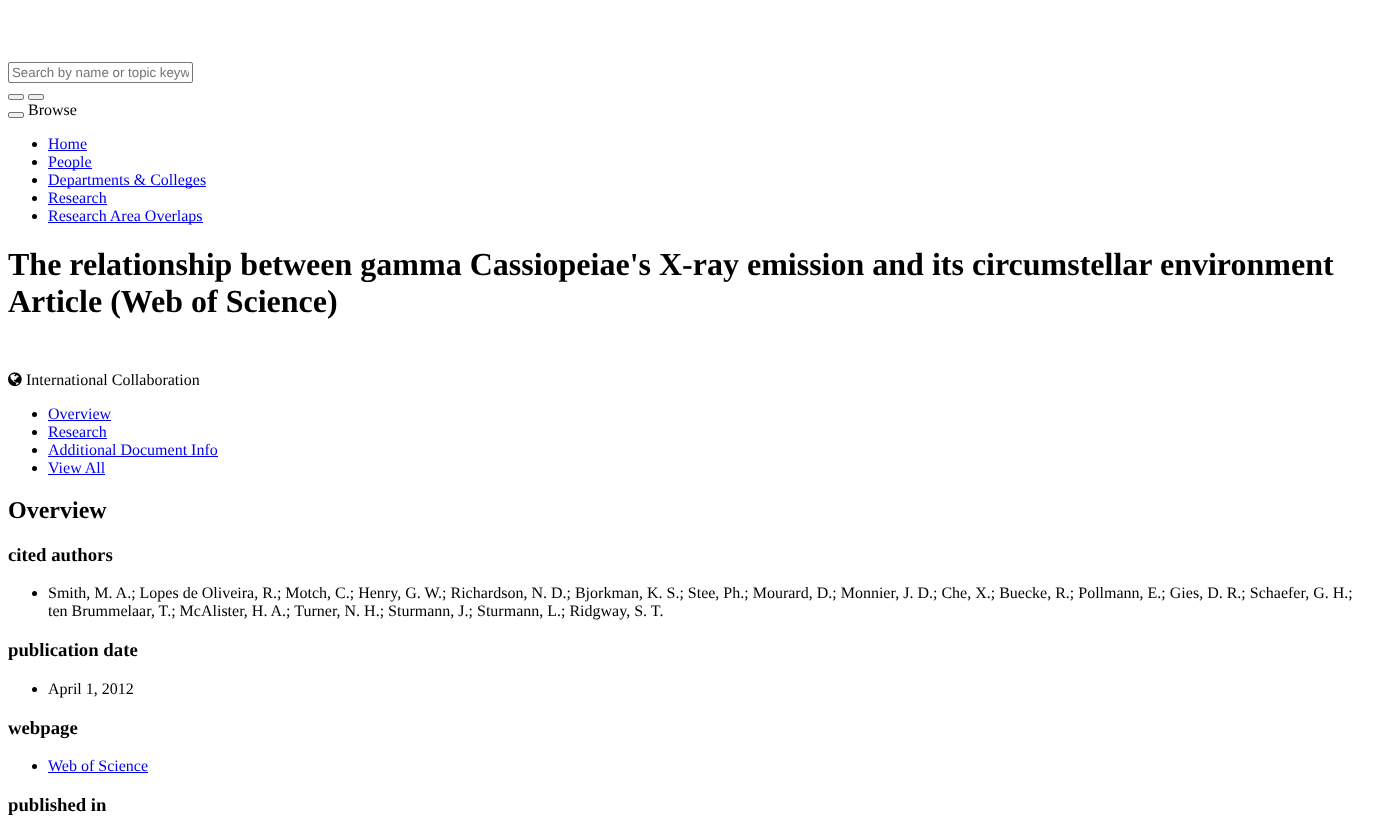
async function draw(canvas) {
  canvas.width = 1379
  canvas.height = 826
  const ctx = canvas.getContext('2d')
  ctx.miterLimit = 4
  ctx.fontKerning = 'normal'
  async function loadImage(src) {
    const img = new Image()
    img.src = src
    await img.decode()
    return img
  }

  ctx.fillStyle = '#fff'
  ctx.fillRect(0, 0, 1379, 826)
  ctx.beginPath()
  ctx.roundRect(8.5, 62.5, 184, 20, 1.5)
  ctx.strokeStyle = '#767676'
  ctx.stroke()
  ctx.save()
  ctx.beginPath()
  ctx.rect(12, 65, 177, 15)
  ctx.clip()
  ctx.font = '13.3px Liberation Sans'
  ctx.fillStyle = '#757575'
  ctx.fillText('Search by name or topic keyw', 12, 77)
  ctx.restore()
  ctx.fillStyle = '#efefef'
  ctx.beginPath()
  ctx.roundRect(8.5, 94.5, 15, 5, 1.5)
  ctx.fill()
  ctx.stroke()
  ctx.beginPath()
  ctx.roundRect(28.5, 94.5, 15, 5, 1.5)
  ctx.fill()
  ctx.stroke()
  ctx.beginPath()
  ctx.roundRect(8.5, 112.5, 15, 5, 1.5)
  ctx.fill()
  ctx.stroke()
  ctx.font = '16px Liberation Serif'
  ctx.fillStyle = '#000'
  ctx.fillText('Browse', 28, 115)
  ctx.beginPath()
  ctx.arc(34.5, 144.5, 2.5, 0, 2 * Math.PI)
  ctx.fill()
  ctx.fillStyle = '#00e'
  ctx.fillText('Home', 48, 149)
  ctx.fillRect(48, 150, 39, 1)
  ctx.fillStyle = '#000'
  ctx.beginPath()
  ctx.arc(34.5, 162.5, 2.5, 0, 2 * Math.PI)
  ctx.fill()
  ctx.fillStyle = '#00e'
  ctx.fillRect(48, 168, 44, 1)
  ctx.fillText('People', 48, 167)
  ctx.fillStyle = '#000'
  ctx.beginPath()
  ctx.arc(34.5, 180.5, 2.5, 0, 2 * Math.PI)
  ctx.fill()
  ctx.fillStyle = '#00e'
  ctx.fillRect(48, 186, 158, 1)
  ctx.fillText('Departments & Colleges', 48, 185)
  ctx.fillStyle = '#000'
  ctx.beginPath()
  ctx.arc(34.5, 198.5, 2.5, 0, 2 * Math.PI)
  ctx.fill()
  ctx.fillStyle = '#00e'
  ctx.fillText('Research', 48, 203)
  ctx.fillRect(48, 204, 59, 1)
  ctx.fillStyle = '#000'
  ctx.beginPath()
  ctx.arc(34.5, 216.5, 2.5, 0, 2 * Math.PI)
  ctx.fill()
  ctx.fillStyle = '#00e'
  ctx.fillRect(48, 222, 155, 1)
  ctx.fillText('Research Area Overlaps', 48, 221)
  ctx.font = 'bold 32px Liberation Serif'
  ctx.fillStyle = '#000'
  ctx.fillText('The relationship between gamma Cassiopeiae\'s X-ray emission and its circumstellar environment', 8, 275)
  ctx.fillText('Article (Web of Science)', 8, 312)
  ctx.drawImage(await loadImage('image0.png'), 8, 372, 14, 15)
  ctx.font = '16px Liberation Serif'
  ctx.fillText('International Collaboration', 26, 385)
  ctx.beginPath()
  ctx.arc(34.5, 414.5, 2.5, 0, 2 * Math.PI)
  ctx.fill()
  ctx.fillStyle = '#00e'
  ctx.fillText('Overview', 48, 419)
  ctx.fillRect(48, 420, 63, 1)
  ctx.fillStyle = '#000'
  ctx.beginPath()
  ctx.arc(34.5, 432.5, 2.5, 0, 2 * Math.PI)
  ctx.fill()
  ctx.fillStyle = '#00e'
  ctx.fillText('Research', 48, 437)
  ctx.fillRect(48, 438, 59, 1)
  ctx.fillStyle = '#000'
  ctx.beginPath()
  ctx.arc(34.5, 450.5, 2.5, 0, 2 * Math.PI)
  ctx.fill()
  ctx.fillStyle = '#00e'
  ctx.fillText('Additional Document Info', 48, 455)
  ctx.fillRect(48, 456, 170, 1)
  ctx.fillStyle = '#000'
  ctx.beginPath()
  ctx.arc(34.5, 468.5, 2.5, 0, 2 * Math.PI)
  ctx.fill()
  ctx.fillStyle = '#00e'
  ctx.fillText('View All', 48, 473)
  ctx.fillRect(48, 474, 57, 1)
  ctx.font = 'bold 24px Liberation Serif'
  ctx.fillStyle = '#000'
  ctx.fillText('Overview', 8, 518)
  ctx.font = 'bold 18.75px Liberation Serif'
  ctx.fillText('cited authors', 8, 561)
  ctx.beginPath()
  ctx.arc(34.5, 593.5, 2.5, 0, 2 * Math.PI)
  ctx.fill()
  ctx.font = '16px Liberation Serif'
  ctx.fillText('Smith, M. A.; Lopes de Oliveira, R.; Motch, C.; Henry, G. W.; Richardson, N. D.; Bjorkman, K. S.; Stee, Ph.; Mourard, D.; Monnier, J. D.; Che, X.; Buecke, R.; Pollmann, E.; Gies, D. R.; Schaefer, G. H.;', 48, 598)
  ctx.fillText('ten Brummelaar, T.; McAlister, H. A.; Turner, N. H.; Sturmann, J.; Sturmann, L.; Ridgway, S. T.', 48, 616)
  ctx.font = 'bold 18.75px Liberation Serif'
  ctx.fillText('publication date', 8, 656)
  ctx.beginPath()
  ctx.arc(34.5, 689.5, 2.5, 0, 2 * Math.PI)
  ctx.fill()
  ctx.font = '16px Liberation Serif'
  ctx.fillText('April 1, 2012', 48, 694)
  ctx.font = 'bold 18.75px Liberation Serif'
  ctx.fillText('webpage', 8, 734)
  ctx.beginPath()
  ctx.arc(34.5, 766.5, 2.5, 0, 2 * Math.PI)
  ctx.fill()
  ctx.font = '16px Liberation Serif'
  ctx.fillStyle = '#00e'
  ctx.fillText('Web of Science', 48, 771)
  ctx.fillRect(48, 772, 100, 1)
  ctx.font = 'bold 18.75px Liberation Serif'
  ctx.fillStyle = '#000'
  ctx.fillText('published in', 8, 811)
}

draw(document.querySelector('canvas'))
